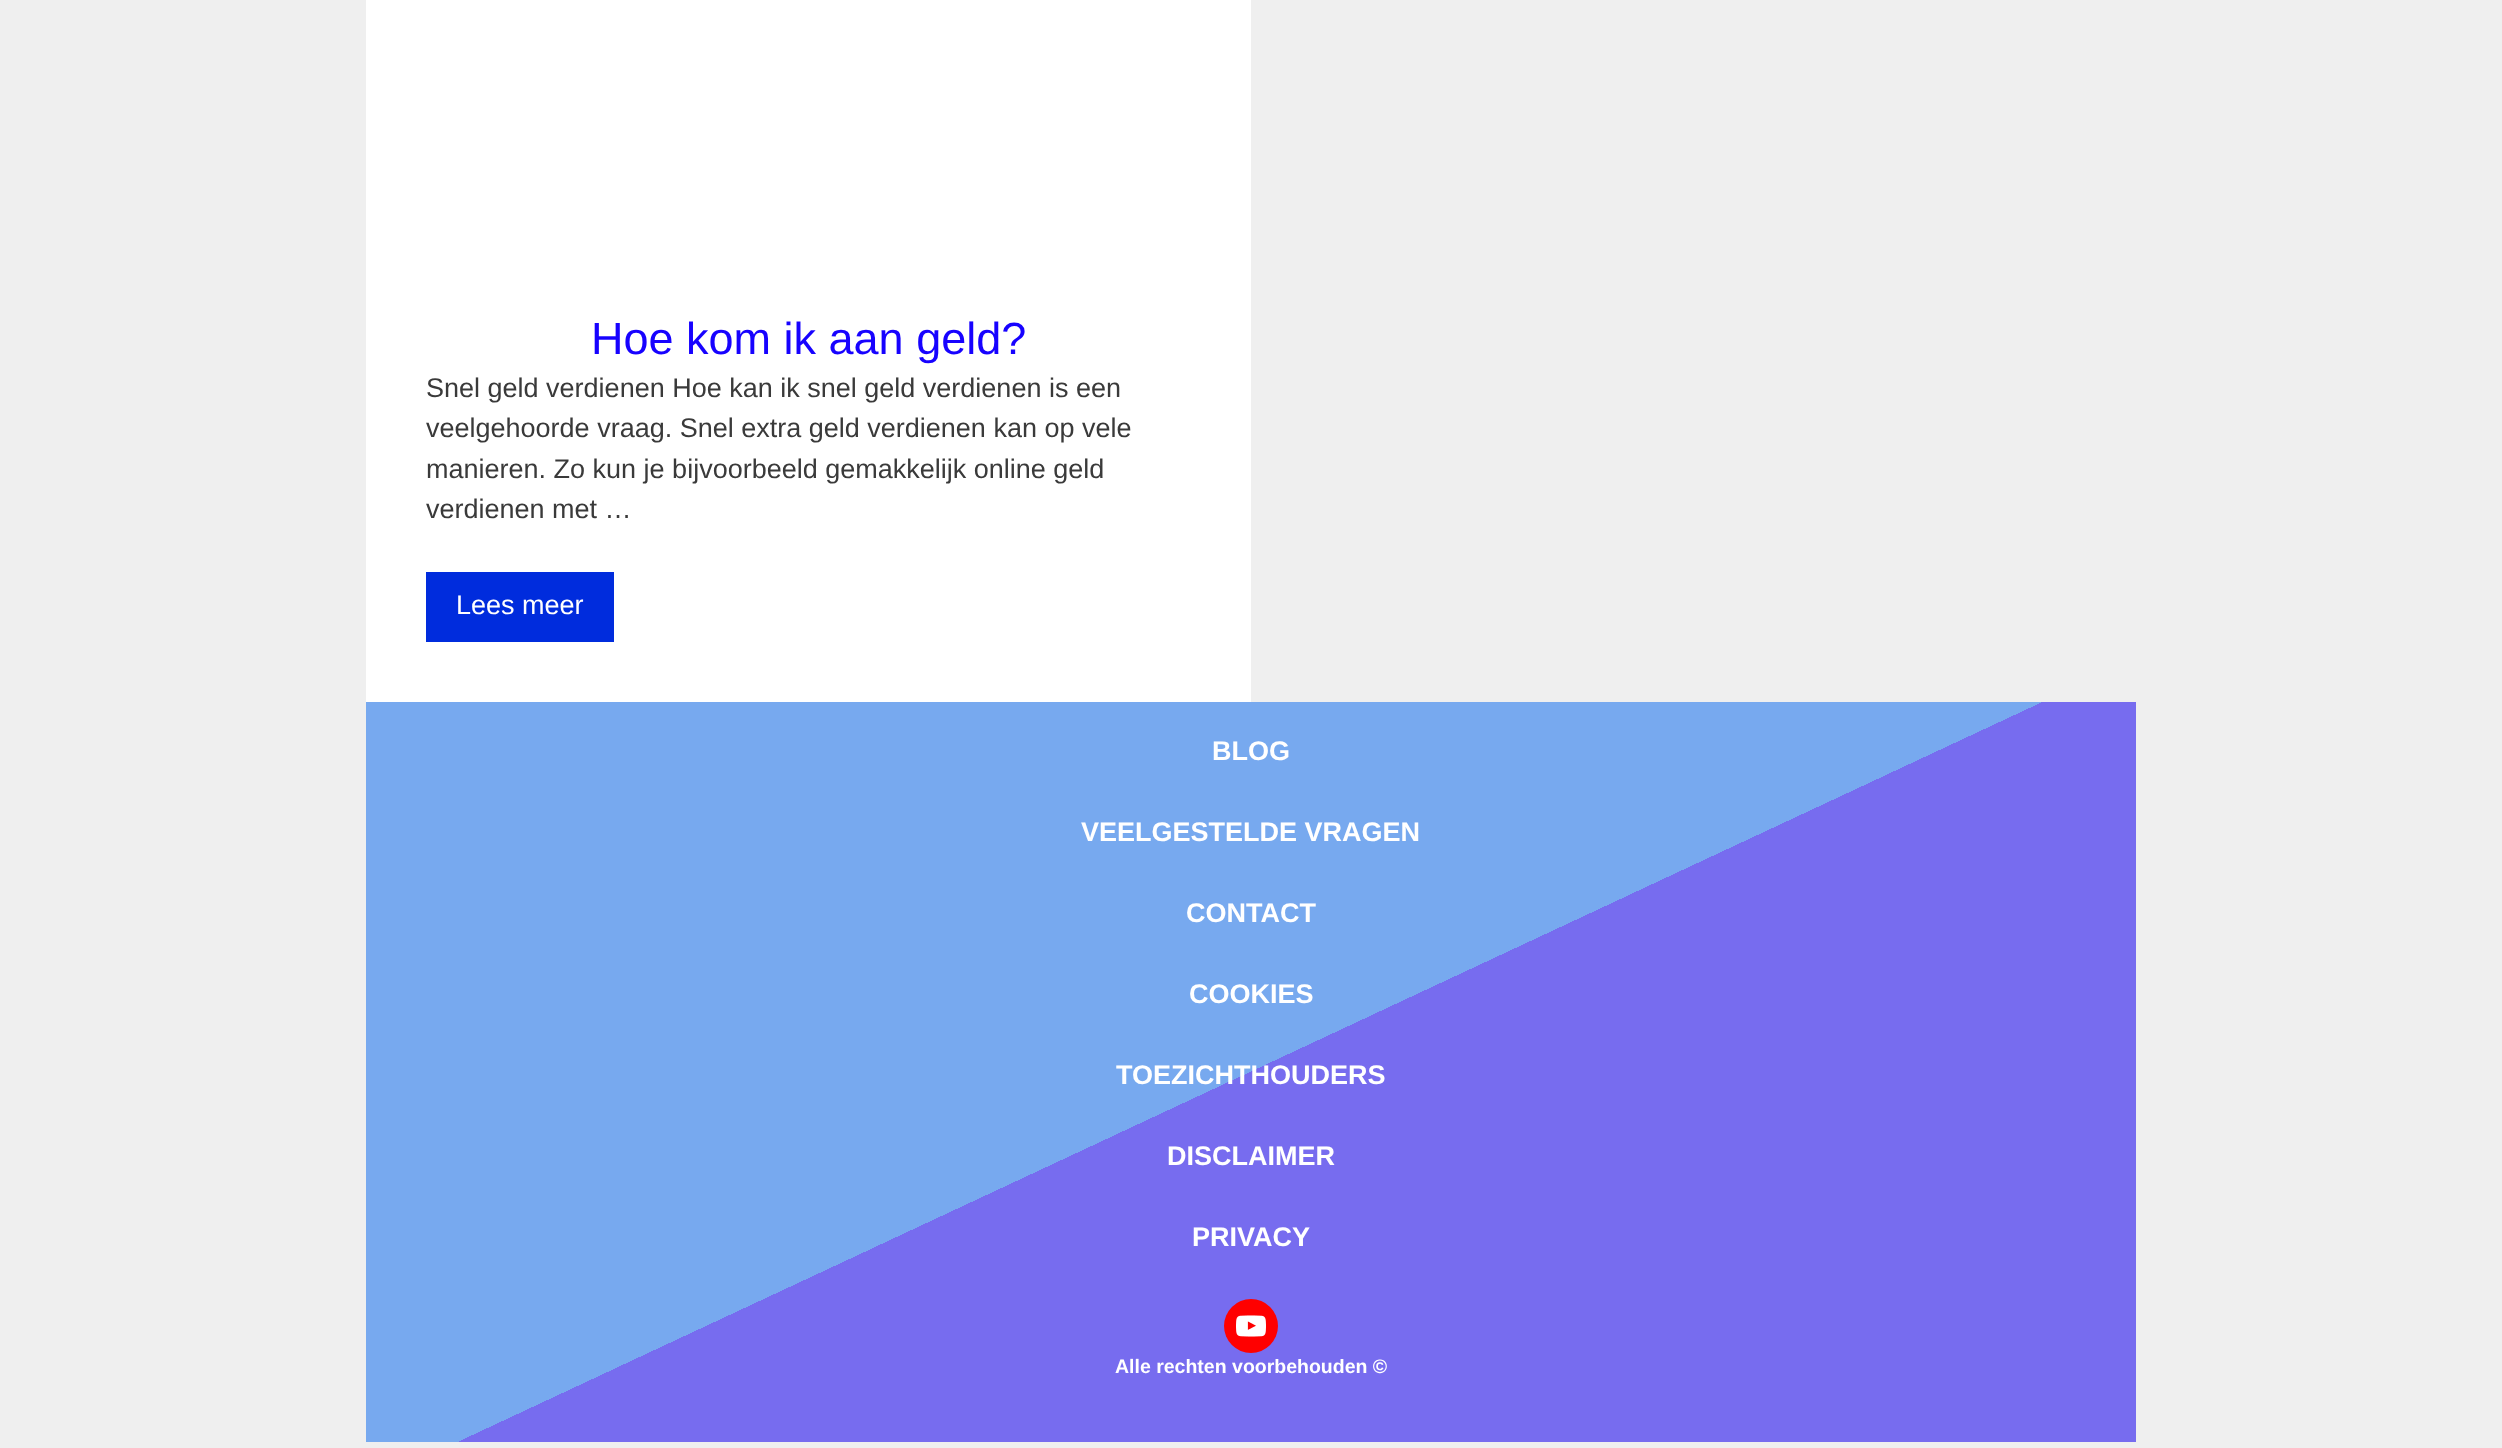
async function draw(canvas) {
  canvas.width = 2502
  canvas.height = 1448
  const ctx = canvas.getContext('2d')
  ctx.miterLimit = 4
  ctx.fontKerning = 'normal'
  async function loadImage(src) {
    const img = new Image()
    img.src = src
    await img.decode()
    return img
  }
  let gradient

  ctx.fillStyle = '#efefef'
  ctx.fillRect(0, 0, 2502, 1448)
  ctx.fillStyle = '#fff'
  ctx.fillRect(366, 0, 885, 702)
  ctx.font = '45px Liberation Sans'
  ctx.fillStyle = '#1702ff'
  ctx.fillText('Hoe kom ik aan geld?', 591, 354)
  ctx.font = '27px Liberation Sans'
  ctx.fillStyle = '#3a3a3a'
  ctx.fillText('Snel geld verdienen Hoe kan ik snel geld verdienen is een', 426, 397)
  ctx.fillText('veelgehoorde vraag. Snel extra geld verdienen kan op vele', 426, 437)
  ctx.fillText('manieren. Zo kun je bijvoorbeeld gemakkelijk online geld', 426, 478)
  ctx.fillText('verdienen met …', 426, 518)
  ctx.fillStyle = '#002cdd'
  ctx.fillRect(426, 572, 188, 70)
  ctx.fillStyle = '#fff'
  ctx.fillText('Lees meer', 456, 614)
  gradient = ctx.createLinearGradient(951, 429, 1551, 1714)
  gradient.addColorStop(0.5, '#77a9ef')
  gradient.addColorStop(0.5, '#776cef')
  ctx.fillStyle = gradient
  ctx.fillRect(366, 702, 1770, 740)
  ctx.font = 'bold 27px Liberation Sans'
  ctx.fillStyle = '#fff'
  ctx.fillText('BLOG', 1212, 760)
  ctx.fillText('VEELGESTELDE VRAGEN', 1081, 841)
  ctx.fillText('CONTACT', 1186, 922)
  ctx.fillText('COOKIES', 1189, 1003)
  ctx.fillText('TOEZICHTHOUDERS', 1116, 1084)
  ctx.fillText('DISCLAIMER', 1167, 1165)
  ctx.fillText('PRIVACY', 1192, 1246)
  ctx.fillStyle = '#f00'
  ctx.beginPath()
  ctx.arc(1251, 1326, 27, 0, 2 * Math.PI)
  ctx.fill()
  ctx.drawImage(await loadImage('image0.png'), 1236, 1315, 30, 22)
  ctx.font = 'bold 19.5px Liberation Sans'
  ctx.fillStyle = '#fff'
  ctx.fillText('Alle rechten voorbehouden ©', 1115, 1373)
}

draw(document.querySelector('canvas'))
